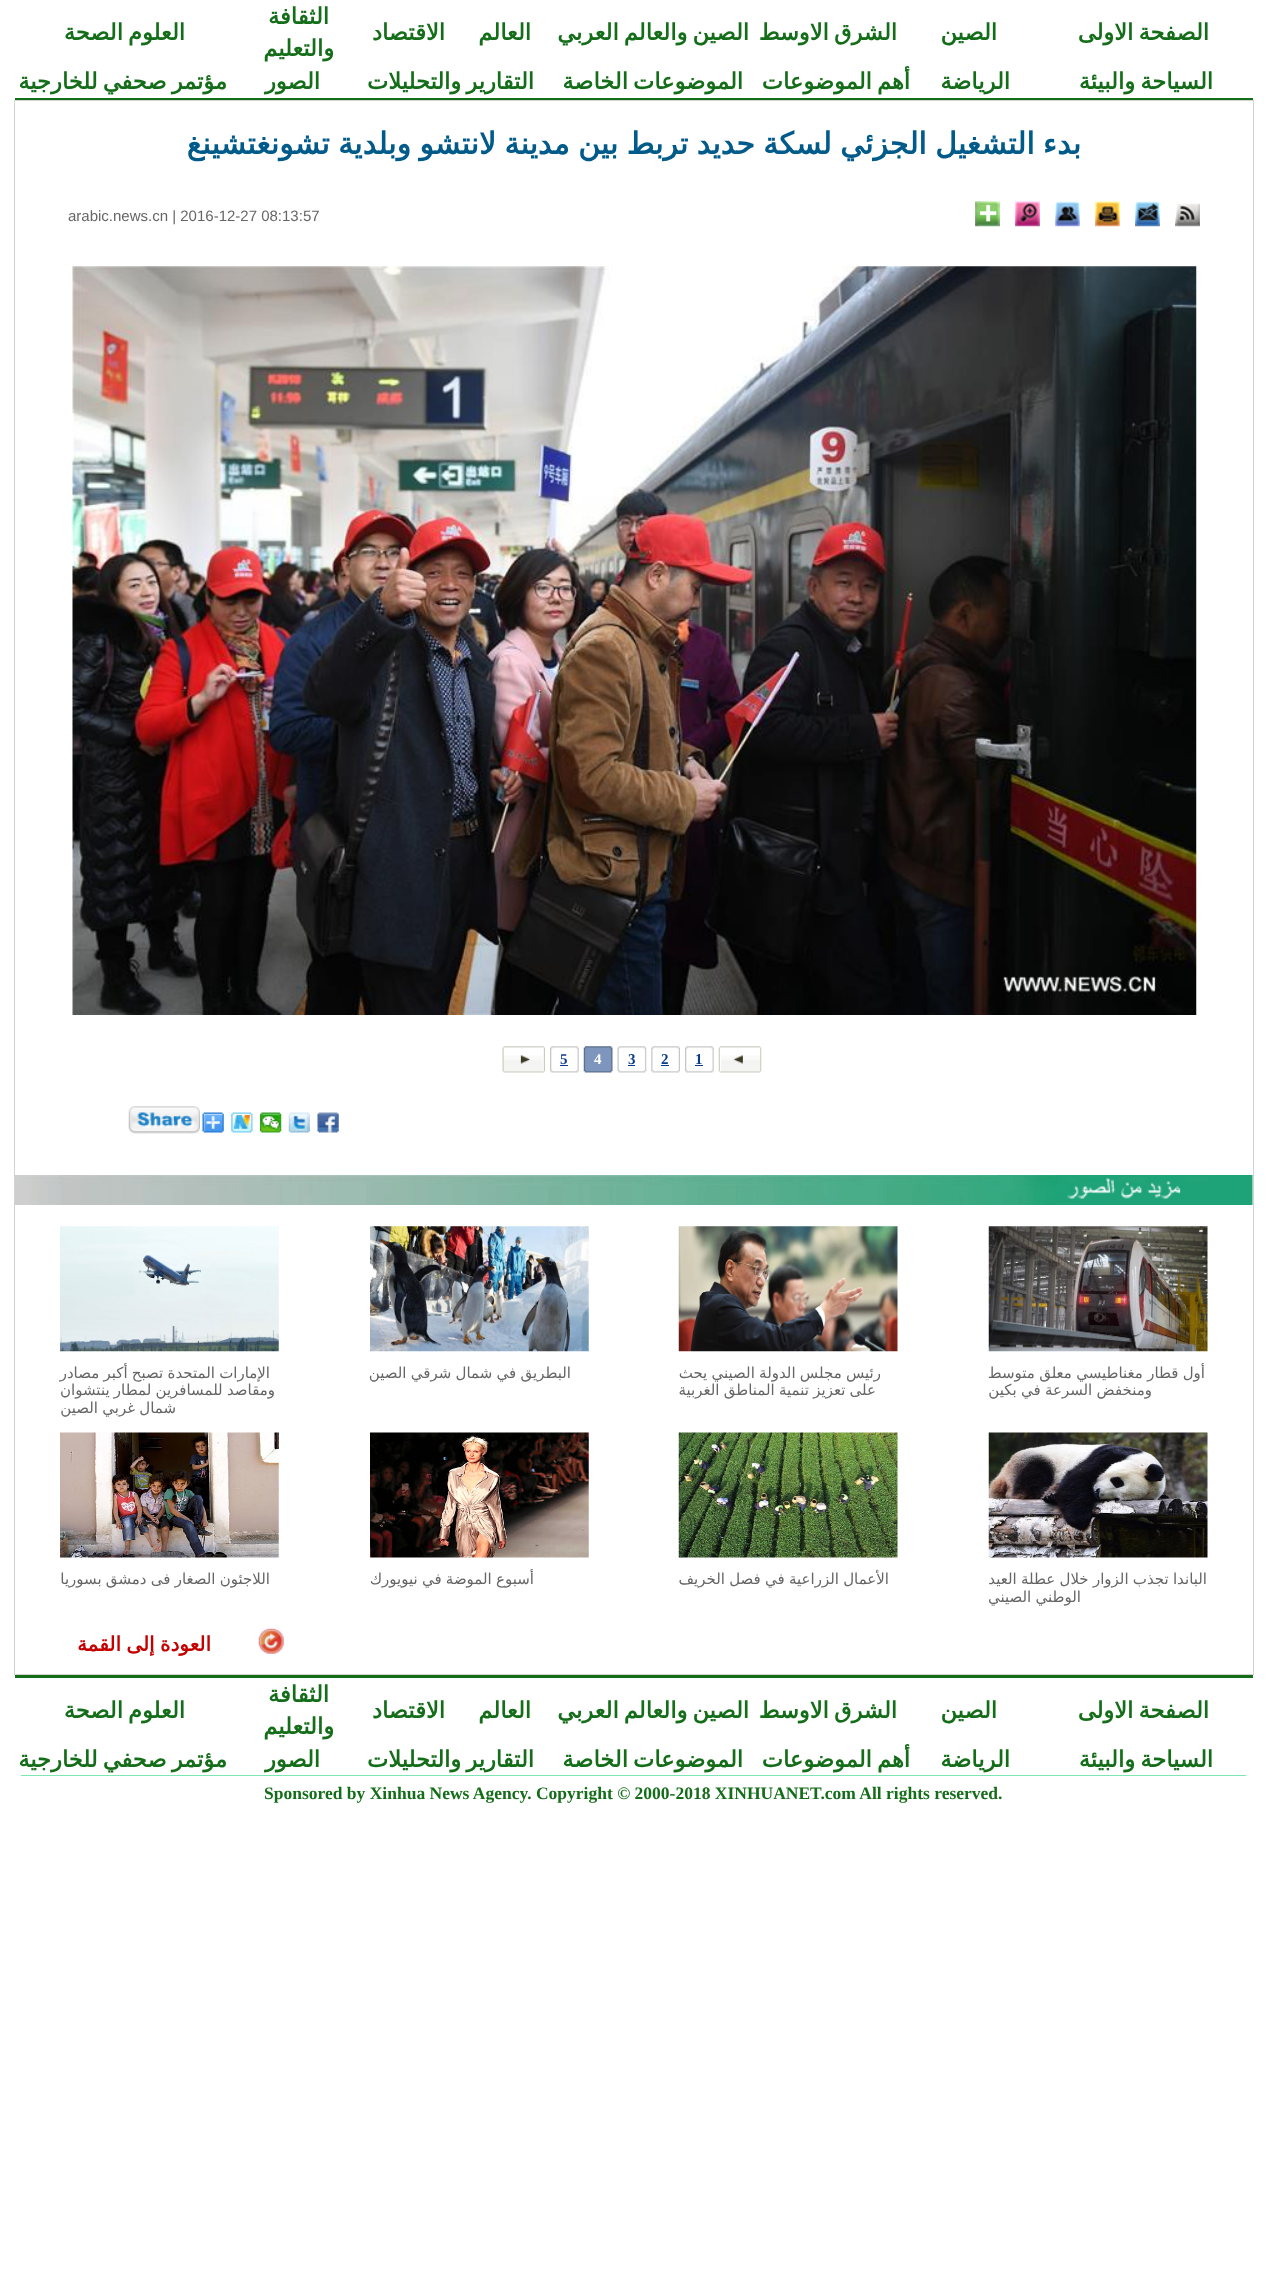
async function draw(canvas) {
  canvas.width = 1267
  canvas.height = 2280
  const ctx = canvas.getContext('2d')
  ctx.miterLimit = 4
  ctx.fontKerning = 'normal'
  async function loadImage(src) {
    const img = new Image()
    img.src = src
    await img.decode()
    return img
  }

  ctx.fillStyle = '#fff'
  ctx.fillRect(0, 0, 1267, 2280)
  ctx.wordSpacing = '-2px'
  ctx.direction = 'rtl'
  ctx.font = 'bold 22.5px DejaVu Sans'
  ctx.fillStyle = '#146d19'
  ctx.fillText('الصفحة الاولى', 1209, 40)
  ctx.wordSpacing = '0px'
  ctx.fillText('الصين', 997, 40)
  ctx.wordSpacing = '-2px'
  ctx.fillText('الشرق الاوسط', 897, 40)
  ctx.fillText('الصين والعالم العربي', 749, 40)
  ctx.wordSpacing = '0px'
  ctx.fillText('العالم', 531, 40)
  ctx.fillText('الاقتصاد', 445, 40)
  ctx.fillText('الثقافة', 329, 24)
  ctx.fillText('والتعليم', 334, 56)
  ctx.wordSpacing = '-2px'
  ctx.fillText('العلوم الصحة', 185, 40)
  ctx.fillText('السياحة والبيئة', 1213, 89)
  ctx.wordSpacing = '0px'
  ctx.fillText('الرياضة', 1010, 89)
  ctx.wordSpacing = '-2px'
  ctx.fillText('أهم الموضوعات', 910, 89)
  ctx.fillText('الموضوعات الخاصة', 743, 89)
  ctx.fillText('التقارير والتحليلات', 534, 89)
  ctx.wordSpacing = '0px'
  ctx.fillText('الصور', 320, 89)
  ctx.wordSpacing = '-2px'
  ctx.fillText('مؤتمر صحفي للخارجية', 227, 89)
  ctx.fillRect(15, 98, 1238, 2)
  ctx.strokeStyle = '#d3d4cf'
  ctx.strokeRect(14.5, 100.5, 1239, 1574)
  ctx.wordSpacing = '-1.25px'
  ctx.font = 'bold 30px DejaVu Sans'
  ctx.fillStyle = '#005b8a'
  ctx.fillText('بدء التشغيل الجزئي لسكة حديد تربط بين مدينة لانتشو وبلدية تشونغتشينغ', 1081, 154)
  ctx.drawImage(await loadImage('image0.png'), 1175, 203, 25, 24)
  ctx.drawImage(await loadImage('image1.png'), 1135, 201, 25, 26)
  ctx.drawImage(await loadImage('image2.png'), 1095, 201, 25, 26)
  ctx.drawImage(await loadImage('image3.png'), 1055, 201, 25, 26)
  ctx.drawImage(await loadImage('image4.png'), 1015, 201, 25, 26)
  ctx.drawImage(await loadImage('image5.png'), 975, 201, 25, 26)
  ctx.wordSpacing = '0px'
  ctx.direction = 'ltr'
  ctx.font = '15px Liberation Sans'
  ctx.fillStyle = '#666'
  ctx.fillText('arabic.news.cn | 2016-12-27 08:13:57', 68, 221)
  ctx.drawImage(await loadImage('image6.png'), 72, 266, 1125, 749)
  ctx.drawImage(await loadImage('image7.png'), 718, 1046, 44, 27)
  ctx.drawImage(await loadImage('image8.png'), 685, 1046, 29, 27)
  ctx.font = 'bold 15px Liberation Serif'
  ctx.fillStyle = '#0b3b8c'
  ctx.fillText('1', 695, 1064)
  ctx.fillRect(695, 1065, 8, 1)
  ctx.drawImage(await loadImage('image9.png'), 651, 1046, 29, 27)
  ctx.fillText('2', 661, 1064)
  ctx.fillRect(661, 1065, 8, 1)
  ctx.drawImage(await loadImage('image10.png'), 617, 1046, 30, 27)
  ctx.fillText('3', 628, 1064)
  ctx.fillRect(628, 1065, 7, 1)
  ctx.drawImage(await loadImage('image11.png'), 583, 1046, 30, 27)
  ctx.fillStyle = '#fff'
  ctx.fillText('4', 594, 1064)
  ctx.drawImage(await loadImage('image8.png'), 550, 1046, 29, 27)
  ctx.fillStyle = '#0b3b8c'
  ctx.fillText('5', 560, 1064)
  ctx.fillRect(560, 1065, 8, 1)
  ctx.drawImage(await loadImage('image12.png'), 502, 1046, 43, 27)
  ctx.drawImage(await loadImage('image13.png'), 317, 1112, 22, 21)
  ctx.drawImage(await loadImage('image14.png'), 288, 1112, 22, 21)
  ctx.drawImage(await loadImage('image15.png'), 260, 1112, 22, 21)
  ctx.drawImage(await loadImage('image16.png'), 231, 1112, 22, 21)
  ctx.drawImage(await loadImage('image17.png'), 202, 1112, 22, 21)
  ctx.drawImage(await loadImage('image18.png'), 128, 1106, 72, 28)
  ctx.drawImage(await loadImage('image19.png'), 15, 1175, 1238, 30)
  ctx.drawImage(await loadImage('image20.png'), 988, 1226, 220, 126)
  ctx.wordSpacing = '-0.5px'
  ctx.direction = 'rtl'
  ctx.font = '15px DejaVu Sans'
  ctx.fillStyle = '#666'
  ctx.fillText('أول قطار مغناطيسي معلق متوسط', 1205, 1378)
  ctx.fillText('ومنخفض السرعة في بكين', 1152, 1395)
  ctx.drawImage(await loadImage('image21.png'), 678, 1226, 220, 126)
  ctx.fillText('رئيس مجلس الدولة الصيني يحث', 881, 1378)
  ctx.fillText('على تعزيز تنمية المناطق الغربية', 876, 1395)
  ctx.drawImage(await loadImage('image22.png'), 370, 1226, 219, 126)
  ctx.fillText('البطريق في شمال شرقي الصين', 571, 1378)
  ctx.drawImage(await loadImage('image23.png'), 60, 1226, 219, 126)
  ctx.fillText('الإمارات المتحدة تصبح أكبر مصادر', 270, 1378)
  ctx.fillText('ومقاصد للمسافرين لمطار ينتشوان', 275, 1395)
  ctx.fillText('شمال غربي الصين', 176, 1413)
  ctx.drawImage(await loadImage('image24.png'), 988, 1432, 220, 126)
  ctx.fillText('الباندا تجذب الزوار خلال عطلة العيد', 1207, 1584)
  ctx.fillText('الوطني الصيني', 1081, 1602)
  ctx.drawImage(await loadImage('image25.png'), 678, 1432, 220, 126)
  ctx.fillText('الأعمال الزراعية في فصل الخريف', 889, 1584)
  ctx.drawImage(await loadImage('image26.png'), 370, 1432, 219, 126)
  ctx.fillText('أسبوع الموضة في نيويورك', 534, 1584)
  ctx.drawImage(await loadImage('image27.png'), 60, 1432, 219, 126)
  ctx.fillText('اللاجئون الصغار فى دمشق بسوريا', 270, 1584)
  ctx.drawImage(await loadImage('image28.png'), 258, 1628, 26, 26)
  ctx.wordSpacing = '-1px'
  ctx.font = 'bold 20px DejaVu Sans'
  ctx.fillStyle = '#c40000'
  ctx.fillText('العودة إلى القمة', 211, 1651)
  ctx.fillStyle = '#146d19'
  ctx.fillRect(15, 1675, 1238, 3)
  ctx.wordSpacing = '-2px'
  ctx.font = 'bold 22.5px DejaVu Sans'
  ctx.fillText('الصفحة الاولى', 1209, 1718)
  ctx.wordSpacing = '0px'
  ctx.fillText('الصين', 997, 1718)
  ctx.wordSpacing = '-2px'
  ctx.fillText('الشرق الاوسط', 897, 1718)
  ctx.fillText('الصين والعالم العربي', 749, 1718)
  ctx.wordSpacing = '0px'
  ctx.fillText('العالم', 531, 1718)
  ctx.fillText('الاقتصاد', 445, 1718)
  ctx.fillText('الثقافة', 329, 1702)
  ctx.fillText('والتعليم', 334, 1734)
  ctx.wordSpacing = '-2px'
  ctx.fillText('العلوم الصحة', 185, 1718)
  ctx.fillText('السياحة والبيئة', 1213, 1767)
  ctx.wordSpacing = '0px'
  ctx.fillText('الرياضة', 1010, 1767)
  ctx.wordSpacing = '-2px'
  ctx.fillText('أهم الموضوعات', 910, 1767)
  ctx.fillText('الموضوعات الخاصة', 743, 1767)
  ctx.fillText('التقارير والتحليلات', 534, 1767)
  ctx.wordSpacing = '0px'
  ctx.fillText('الصور', 320, 1767)
  ctx.wordSpacing = '-2px'
  ctx.fillText('مؤتمر صحفي للخارجية', 227, 1767)
  ctx.fillStyle = '#7de7b3'
  ctx.fillRect(21, 1775, 1225, 1)
  ctx.wordSpacing = '0px'
  ctx.direction = 'ltr'
  ctx.font = 'bold 17.5px Liberation Serif'
  ctx.fillStyle = '#146d19'
  ctx.fillText('Sponsored by Xinhua News Agency. Copyright © 2000-2018 XINHUANET.com All rights reserved.', 264, 1799)
}

draw(document.querySelector('canvas'))
